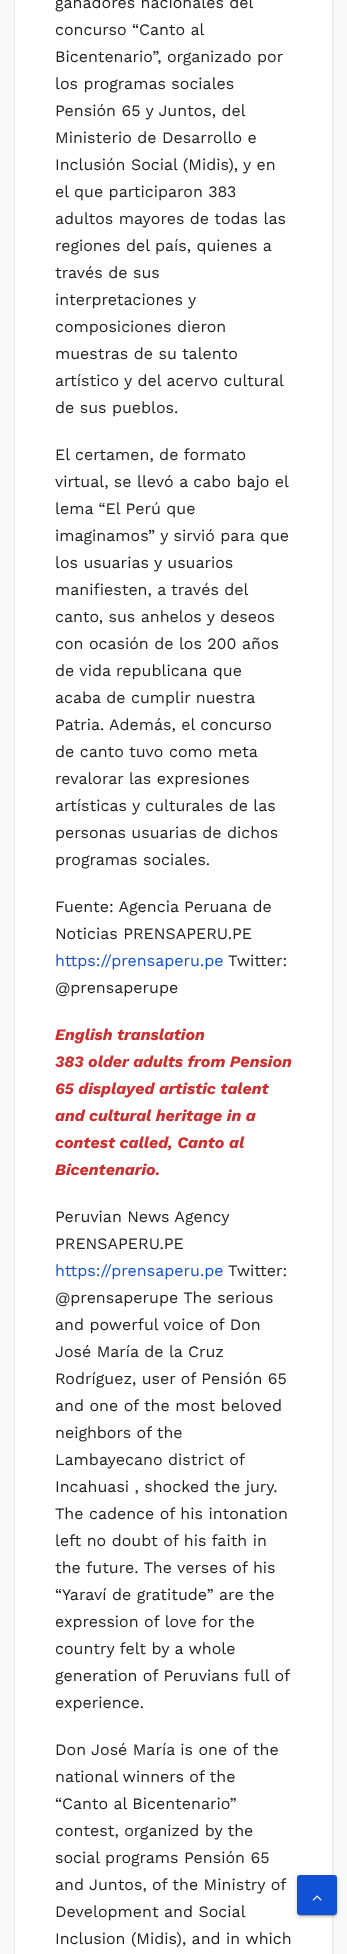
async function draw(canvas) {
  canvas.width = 347
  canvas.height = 1954
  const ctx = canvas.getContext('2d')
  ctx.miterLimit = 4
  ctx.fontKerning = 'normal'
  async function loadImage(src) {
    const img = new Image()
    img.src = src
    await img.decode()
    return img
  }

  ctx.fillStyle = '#f9f9f9'
  ctx.fillRect(0, 0, 347, 1954)
  ctx.fillStyle = '#00000026'
  ctx.filter = 'blur(1.5px)'
  ctx.beginPath()
  ctx.rect(15, -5, 317, 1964)
  ctx.fill()
  ctx.filter = 'none'
  ctx.fillStyle = '#fff'
  ctx.fillRect(15, 0, 317, 1954)
  ctx.font = '16px Work Sans'
  ctx.fillStyle = '#222'
  ctx.fillText('ganadores nacionales del', 55, 8)
  ctx.fillText('concurso “Canto al', 55, 35)
  ctx.fillText('Bicentenario”, organizado por', 55, 62)
  ctx.fillText('los programas sociales', 55, 89)
  ctx.fillText('Pensión 65 y Juntos, del', 55, 116)
  ctx.fillText('Ministerio de Desarrollo e', 55, 143)
  ctx.fillText('Inclusión Social (Midis), y en', 55, 170)
  ctx.fillText('el que participaron 383', 55, 197)
  ctx.fillText('adultos mayores de todas las', 55, 224)
  ctx.fillText('regiones del país, quienes a', 55, 251)
  ctx.fillText('través de sus', 55, 278)
  ctx.fillText('interpretaciones y', 55, 305)
  ctx.fillText('composiciones dieron', 55, 332)
  ctx.fillText('muestras de su talento', 55, 359)
  ctx.fillText('artístico y del acervo cultural', 55, 386)
  ctx.fillText('de sus pueblos.', 55, 413)
  ctx.fillText('El certamen, de formato', 55, 460)
  ctx.fillText('virtual, se llevó a cabo bajo el', 55, 487)
  ctx.fillText('lema “El Perú que', 55, 514)
  ctx.fillText('imaginamos” y sirvió para que', 55, 541)
  ctx.fillText('los usuarias y usuarios', 55, 568)
  ctx.fillText('manifiesten, a través del', 55, 595)
  ctx.fillText('canto, sus anhelos y deseos', 55, 622)
  ctx.fillText('con ocasión de los 200 años', 55, 649)
  ctx.fillText('de vida republicana que', 55, 676)
  ctx.fillText('acaba de cumplir nuestra', 55, 703)
  ctx.fillText('Patria. Además, el concurso', 55, 730)
  ctx.fillText('de canto tuvo como meta', 55, 757)
  ctx.fillText('revalorar las expresiones', 55, 784)
  ctx.fillText('artísticas y culturales de las', 55, 811)
  ctx.fillText('personas usuarias de dichos', 55, 838)
  ctx.fillText('programas sociales.', 55, 865)
  ctx.fillText('Fuente: Agencia Peruana de', 55, 912)
  ctx.fillText('Noticias PRENSAPERU.PE', 55, 939)
  ctx.fillStyle = '#1151d3'
  ctx.fillText('https://prensaperu.pe', 55, 966)
  ctx.fillStyle = '#222'
  ctx.fillText('Twitter:', 228, 966)
  ctx.fillText('@prensaperupe', 55, 993)
  ctx.font = 'italic bold 16px Work Sans'
  ctx.fillStyle = '#cf2e2e'
  ctx.fillText('English translation', 55, 1040)
  ctx.fillText('383 older adults from Pension', 55, 1067)
  ctx.fillText('65 displayed artistic talent', 55, 1094)
  ctx.fillText('and cultural heritage in a', 55, 1121)
  ctx.fillText('contest called, Canto al', 55, 1148)
  ctx.fillText('Bicentenario.', 55, 1175)
  ctx.font = '16px Work Sans'
  ctx.fillStyle = '#222'
  ctx.fillText('Peruvian News Agency', 55, 1222)
  ctx.fillText('PRENSAPERU.PE', 55, 1249)
  ctx.fillStyle = '#1151d3'
  ctx.fillText('https://prensaperu.pe', 55, 1276)
  ctx.fillStyle = '#222'
  ctx.fillText('Twitter:', 228, 1276)
  ctx.fillText('@prensaperupe The serious', 55, 1303)
  ctx.fillText('and powerful voice of Don', 55, 1330)
  ctx.fillText('José María de la Cruz', 55, 1357)
  ctx.fillText('Rodríguez, user of Pensión 65', 55, 1384)
  ctx.fillText('and one of the most beloved', 55, 1411)
  ctx.fillText('neighbors of the', 55, 1438)
  ctx.fillText('Lambayecano district of', 55, 1465)
  ctx.fillText('Incahuasi , shocked the jury.', 55, 1492)
  ctx.fillText('The cadence of his intonation', 55, 1519)
  ctx.fillText('left no doubt of his faith in', 55, 1546)
  ctx.fillText('the future. The verses of his', 55, 1573)
  ctx.fillText('“Yaraví de gratitude” are the', 55, 1600)
  ctx.fillText('expression of love for the', 55, 1627)
  ctx.fillText('country felt by a whole', 55, 1654)
  ctx.fillText('generation of Peruvians full of', 55, 1681)
  ctx.fillText('experience.', 55, 1708)
  ctx.fillText('Don José María is one of the', 55, 1755)
  ctx.fillText('national winners of the', 55, 1782)
  ctx.fillText('“Canto al Bicentenario”', 55, 1809)
  ctx.fillText('contest, organized by the', 55, 1836)
  ctx.fillText('social programs Pensión 65', 55, 1863)
  ctx.fillText('and Juntos, of the Ministry of', 55, 1890)
  ctx.fillText('Development and Social', 55, 1917)
  ctx.fillText('Inclusion (Midis), and in which', 55, 1944)
  ctx.fillStyle = '#0000001f'
  ctx.filter = 'blur(2.5px)'
  ctx.beginPath()
  ctx.roundRect(297, 1876, 40, 40, 3)
  ctx.fill()
  ctx.filter = 'none'
  ctx.fillStyle = '#00000033'
  ctx.filter = 'blur(0.5px)'
  ctx.beginPath()
  ctx.roundRect(299, 1880, 36, 36, 1)
  ctx.fill()
  ctx.filter = 'none'
  ctx.fillStyle = '#00000024'
  ctx.filter = 'blur(1px)'
  ctx.beginPath()
  ctx.roundRect(297, 1877, 40, 40, 3)
  ctx.fill()
  ctx.filter = 'none'
  ctx.fillStyle = '#1151d3'
  ctx.beginPath()
  ctx.roundRect(298, 1876, 38, 38, 2)
  ctx.fill()
  ctx.strokeStyle = '#1151d3'
  ctx.lineWidth = 2
  ctx.stroke()
  ctx.drawImage(await loadImage('image0.png'), 312, 1895, 10, 6)
}

draw(document.querySelector('canvas'))
